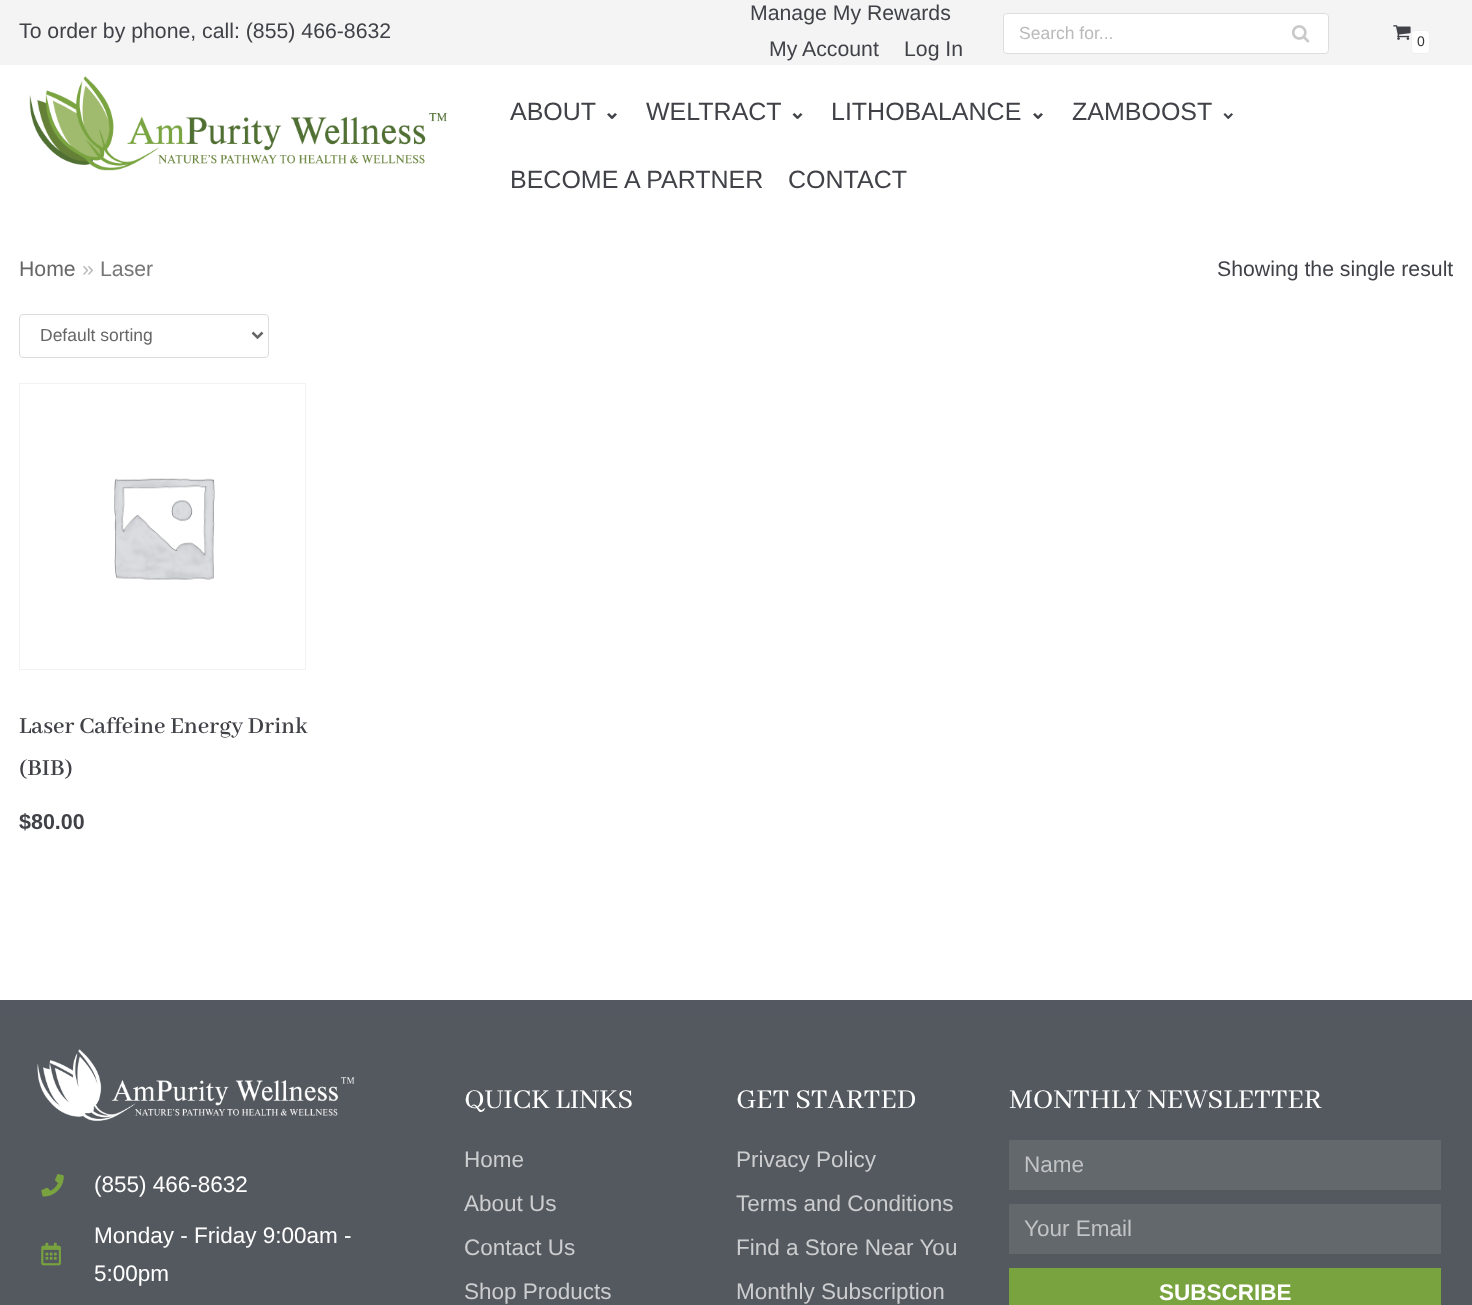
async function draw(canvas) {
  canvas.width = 1472
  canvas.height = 1305
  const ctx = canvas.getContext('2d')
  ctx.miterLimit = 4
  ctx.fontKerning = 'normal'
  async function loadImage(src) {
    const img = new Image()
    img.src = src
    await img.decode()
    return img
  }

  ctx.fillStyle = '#fff'
  ctx.fillRect(0, 0, 1472, 1305)
  ctx.fillStyle = '#f4f4f4'
  ctx.fillRect(0, 0, 1472, 65)
  ctx.font = '21.25px Liberation Sans'
  ctx.fillStyle = '#404248'
  ctx.fillText('To order by phone, call: (855) 466-8632', 19, 38)
  ctx.fillText('Manage My Rewards', 750, 20)
  ctx.fillText('My Account', 769, 56)
  ctx.fillText('Log In', 904, 56)
  ctx.fillStyle = '#fff'
  ctx.beginPath()
  ctx.roundRect(1003.5, 13.5, 325, 40, 3.5)
  ctx.fill()
  ctx.strokeStyle = '#ddd'
  ctx.stroke()
  ctx.font = '17.5px Liberation Sans'
  ctx.fillStyle = '#bababa'
  ctx.fillText('Search for...', 1019, 39)
  ctx.drawImage(await loadImage('image0.png'), 1292, 25, 18, 18)
  ctx.drawImage(await loadImage('image1.png'), 1393, 25, 18, 15)
  ctx.fillStyle = '#fff'
  ctx.beginPath()
  ctx.roundRect(1411.5, 30.5, 18, 23, 3.5)
  ctx.fill()
  ctx.strokeStyle = '#f0f0f0'
  ctx.stroke()
  ctx.font = '14px Liberation Sans'
  ctx.fillStyle = '#333'
  ctx.fillText('0', 1417, 46)
  ctx.drawImage(await loadImage('image2.png'), 29, 76, 419, 95)
  ctx.font = '25px Liberation Sans'
  ctx.fillStyle = '#404248'
  ctx.fillText('ABOUT', 510, 120)
  ctx.beginPath()
  ctx.moveTo(617, 114.5)
  ctx.lineTo(612.5, 119)
  ctx.lineTo(610.5, 117.5)
  ctx.lineTo(615, 113)
  ctx.closePath()
  ctx.fill()
  ctx.beginPath()
  ctx.moveTo(613.5, 117.5)
  ctx.lineTo(611.5, 119)
  ctx.lineTo(607, 114.5)
  ctx.lineTo(609, 113)
  ctx.closePath()
  ctx.fill()
  ctx.fillText('WELTRACT', 646, 120)
  ctx.beginPath()
  ctx.moveTo(802.5, 114.5)
  ctx.lineTo(798, 119)
  ctx.lineTo(796.5, 117.5)
  ctx.lineTo(800.5, 113)
  ctx.closePath()
  ctx.fill()
  ctx.beginPath()
  ctx.moveTo(799, 117.5)
  ctx.lineTo(797, 119)
  ctx.lineTo(792.5, 114.5)
  ctx.lineTo(794.5, 113)
  ctx.closePath()
  ctx.fill()
  ctx.fillText('LITHOBALANCE', 831, 120)
  ctx.beginPath()
  ctx.moveTo(1043, 114.5)
  ctx.lineTo(1038.5, 119)
  ctx.lineTo(1036.5, 117.5)
  ctx.lineTo(1041, 113)
  ctx.closePath()
  ctx.fill()
  ctx.beginPath()
  ctx.moveTo(1039.5, 117.5)
  ctx.lineTo(1037.5, 119)
  ctx.lineTo(1033, 114.5)
  ctx.lineTo(1035, 113)
  ctx.closePath()
  ctx.fill()
  ctx.fillText('ZAMBOOST', 1072, 120)
  ctx.beginPath()
  ctx.moveTo(1233, 114.5)
  ctx.lineTo(1228.5, 119)
  ctx.lineTo(1227, 117.5)
  ctx.lineTo(1231.5, 113)
  ctx.closePath()
  ctx.fill()
  ctx.beginPath()
  ctx.moveTo(1229.5, 117.5)
  ctx.lineTo(1228, 119)
  ctx.lineTo(1223.5, 114.5)
  ctx.lineTo(1225, 113)
  ctx.closePath()
  ctx.fill()
  ctx.fillText('BECOME A PARTNER', 510, 188)
  ctx.fillText('CONTACT', 788, 188)
  ctx.font = '21.25px Liberation Sans'
  ctx.fillStyle = '#676767'
  ctx.fillText('Home', 19, 276)
  ctx.fillStyle = '#bababa'
  ctx.fillText('»', 82, 276)
  ctx.fillStyle = '#767676'
  ctx.fillText('Laser', 100, 276)
  ctx.fillStyle = '#404248'
  ctx.fillText('Showing the single result', 1217, 276)
  ctx.beginPath()
  ctx.roundRect(19.5, 314.5, 249, 43, 3.5)
  ctx.strokeStyle = '#ddd'
  ctx.stroke()
  ctx.beginPath()
  ctx.moveTo(252.5, 332.5)
  ctx.lineTo(257.5, 337.5)
  ctx.lineTo(262.5, 332.5)
  ctx.strokeStyle = '#676767'
  ctx.lineWidth = 2.5
  ctx.stroke()
  ctx.font = '17.5px Liberation Sans'
  ctx.fillStyle = '#676767'
  ctx.fillText('Default sorting', 40, 341)
  ctx.strokeStyle = '#f2f2f2'
  ctx.lineWidth = 1
  ctx.strokeRect(19.5, 383.5, 286, 286)
  ctx.drawImage(await loadImage('image3.png'), 114, 478, 101, 102)
  ctx.font = '600 25px Abhaya Libre SemiBold'
  ctx.fillStyle = '#404248'
  ctx.fillText('Laser Caffeine Energy Drink', 19, 733)
  ctx.fillText('(BIB)', 19, 775)
  ctx.font = 'bold 21.5px Liberation Sans'
  ctx.fillText('$80.00', 19, 829)
  ctx.fillStyle = '#545861'
  ctx.fillRect(0, 1000, 1472, 10)
  ctx.fillStyle = '#54595f'
  ctx.fillRect(0, 1010, 1472, 295)
  ctx.drawImage(await loadImage('image4.png'), 37, 1049, 318, 72)
  ctx.drawImage(await loadImage('image5.png'), 41, 1174, 23, 23)
  ctx.font = '22.5px Liberation Sans'
  ctx.fillStyle = '#fff'
  ctx.fillText('(855) 466-8632', 94, 1192)
  ctx.drawImage(await loadImage('image6.png'), 41, 1242, 20, 24)
  ctx.fillText('Monday - Friday 9:00am -', 94, 1243)
  ctx.fillText('5:00pm', 94, 1281)
  ctx.font = '30px Abhaya Libre'
  ctx.fillText('QUICK LINKS', 464, 1108)
  ctx.font = '22.5px Liberation Sans'
  ctx.fillStyle = '#cccdcf'
  ctx.fillText('Home', 464, 1167)
  ctx.fillText('About Us', 464, 1211)
  ctx.fillText('Contact Us', 464, 1255)
  ctx.fillText('Shop Products', 464, 1299)
  ctx.font = '30px Abhaya Libre'
  ctx.fillStyle = '#fff'
  ctx.fillText('GET STARTED', 736, 1108)
  ctx.font = '22.5px Liberation Sans'
  ctx.fillStyle = '#cccdcf'
  ctx.fillText('Privacy Policy', 736, 1167)
  ctx.fillText('Terms and Conditions', 736, 1211)
  ctx.fillText('Find a Store Near You', 736, 1255)
  ctx.fillText('Monthly Subscription', 736, 1299)
  ctx.font = '30px Abhaya Libre'
  ctx.fillStyle = '#fff'
  ctx.fillText('MONTHLY NEWSLETTER', 1009, 1108)
  ctx.fillStyle = '#63686d'
  ctx.fillRect(1009, 1140, 432, 50)
  ctx.font = '22.5px Liberation Sans'
  ctx.fillStyle = '#c1c3c5'
  ctx.fillText('Name', 1024, 1172)
  ctx.fillStyle = '#63686d'
  ctx.fillRect(1009, 1204, 432, 50)
  ctx.fillStyle = '#c1c3c5'
  ctx.fillText('Your Email', 1024, 1236)
  ctx.fillStyle = '#79a33f'
  ctx.fillRect(1009, 1268, 432, 37)
  ctx.font = 'bold 22.5px Liberation Sans'
  ctx.fillStyle = '#fff'
  ctx.fillText('SUBSCRIBE', 1159, 1300)
}

draw(document.querySelector('canvas'))
